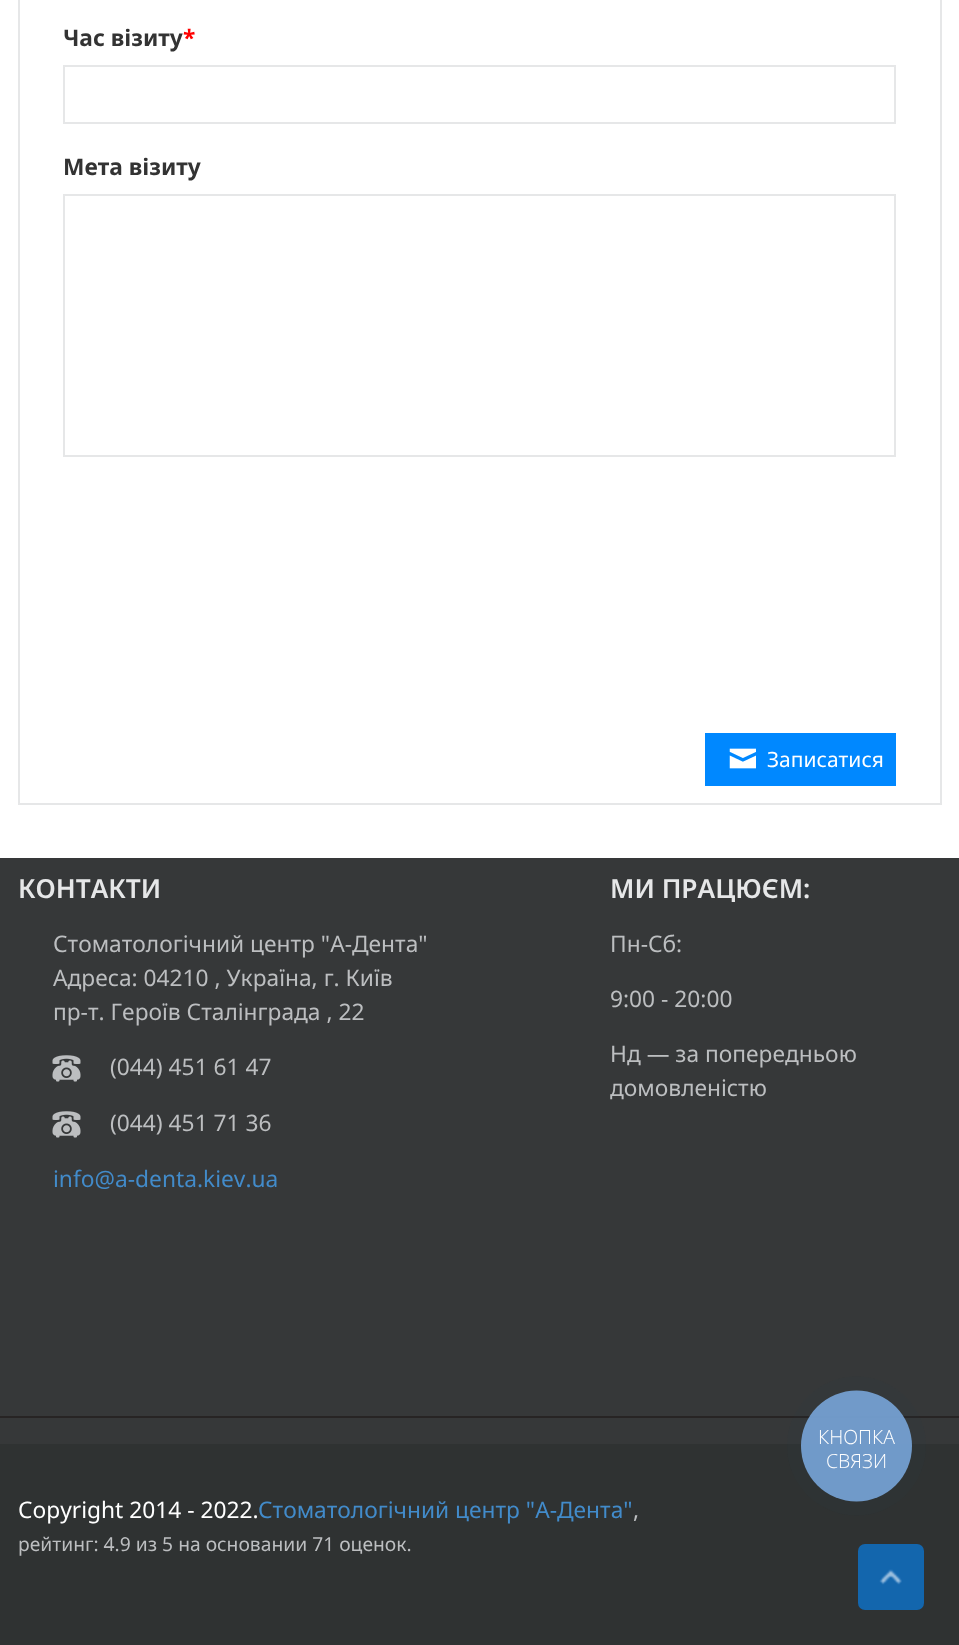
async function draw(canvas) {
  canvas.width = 959
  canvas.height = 1645
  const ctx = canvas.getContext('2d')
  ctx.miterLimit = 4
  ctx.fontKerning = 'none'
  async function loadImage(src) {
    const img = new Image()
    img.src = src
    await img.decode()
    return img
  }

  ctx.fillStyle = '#fff'
  ctx.fillRect(0, 0, 959, 1645)
  ctx.fillStyle = '#e6e7e8'
  ctx.fillRect(940, 0, 2, 805)
  ctx.fillRect(18, 803, 924, 2)
  ctx.fillRect(18, 0, 2, 805)
  ctx.font = 'bold 22.75px Noto Sans'
  ctx.fillStyle = '#333'
  ctx.fillText('Час візиту', 63, 46)
  ctx.fillStyle = '#f00'
  ctx.fillText('*', 183, 46)
  ctx.strokeStyle = '#e6e7e8'
  ctx.lineWidth = 2
  ctx.strokeRect(64, 66, 831, 57)
  ctx.fillStyle = '#333'
  ctx.fillText('Мета візиту', 63, 175)
  ctx.strokeRect(64, 195, 831, 261)
  ctx.fillStyle = '#08f'
  ctx.beginPath()
  ctx.moveTo(705, 737)
  ctx.lineTo(705, 786)
  ctx.lineTo(896, 786)
  ctx.lineTo(896, 782)
  ctx.lineTo(705, 782)
  ctx.closePath()
  ctx.fill()
  ctx.fillRect(705, 733, 191, 49)
  ctx.drawImage(await loadImage('image0.png'), 729, 748, 27, 21)
  ctx.font = '21px Noto Sans'
  ctx.fillStyle = '#fff'
  ctx.fillText('Записатися', 767, 767)
  ctx.fillStyle = '#363839'
  ctx.fillRect(0, 858, 959, 586)
  ctx.fillStyle = '#272424'
  ctx.fillRect(0, 1416, 959, 2)
  ctx.font = '600 26.25px Noto Sans'
  ctx.fillStyle = '#e6e7e8'
  ctx.fillText('КОНТАКТИ', 18, 898)
  ctx.font = '22.75px Noto Sans'
  ctx.fillStyle = '#bcbec0'
  ctx.fillText('Стоматологічний центр "А-Дента"', 53, 952)
  ctx.fillText('Адреса: 04210 , Україна, г. Київ', 53, 986)
  ctx.fillText('пр-т. Героїв Сталінграда , 22', 53, 1020)
  ctx.drawImage(await loadImage('image1.png'), 52, 1055, 29, 27)
  ctx.fillText('(044) 451 61 47', 110, 1075)
  ctx.drawImage(await loadImage('image1.png'), 52, 1111, 29, 27)
  ctx.fillText('(044) 451 71 36', 110, 1131)
  ctx.fillStyle = '#428bca'
  ctx.fillText('info@a-denta.kiev.ua', 53, 1187)
  ctx.font = '600 26.25px Noto Sans'
  ctx.fillStyle = '#e6e7e8'
  ctx.fillText('МИ ПРАЦЮЄМ:', 610, 898)
  ctx.font = '22.75px Noto Sans'
  ctx.fillStyle = '#bcbec0'
  ctx.fillText('Пн-Сб:', 610, 952)
  ctx.fillText('9:00 - 20:00', 610, 1007)
  ctx.fillText('Нд — за попередньою', 610, 1062)
  ctx.fillText('домовленістю', 610, 1096)
  ctx.fillStyle = '#2f3232'
  ctx.fillRect(0, 1444, 959, 201)
  ctx.fillStyle = '#fff'
  ctx.fillText('Copyright 2014 - 2022.', 18, 1518)
  ctx.fillStyle = '#428bca'
  ctx.fillText('Стоматологічний центр "А-Дента"', 258, 1518)
  ctx.fillStyle = '#bcbec0'
  ctx.fillText(',', 633, 1518)
  ctx.font = '19.25px Noto Sans'
  ctx.fillText('рейтинг: 4.9 из 5 на основании 71 оценок.', 18, 1551)
  ctx.fillStyle = '#2a405d0f'
  ctx.beginPath()
  ctx.arc(856.5, 1446, 69.5, 0, 2 * Math.PI)
  ctx.fill()
  ctx.fillStyle = '#76a3d6eb'
  ctx.beginPath()
  ctx.arc(856.5, 1446, 55.5, 0, 2 * Math.PI)
  ctx.fill()
  ctx.font = '300 19.5px Open Sans'
  ctx.fillStyle = '#fff'
  ctx.fillText('КНОПКА', 818, 1444)
  ctx.fillText('СВЯЗИ', 826, 1468)
  ctx.fillStyle = '#1366ad'
  ctx.beginPath()
  ctx.roundRect(858, 1544, 66, 66, 7)
  ctx.fill()
  ctx.drawImage(await loadImage('image2.png'), 879, 1569, 23, 16)
}

draw(document.querySelector('canvas'))
